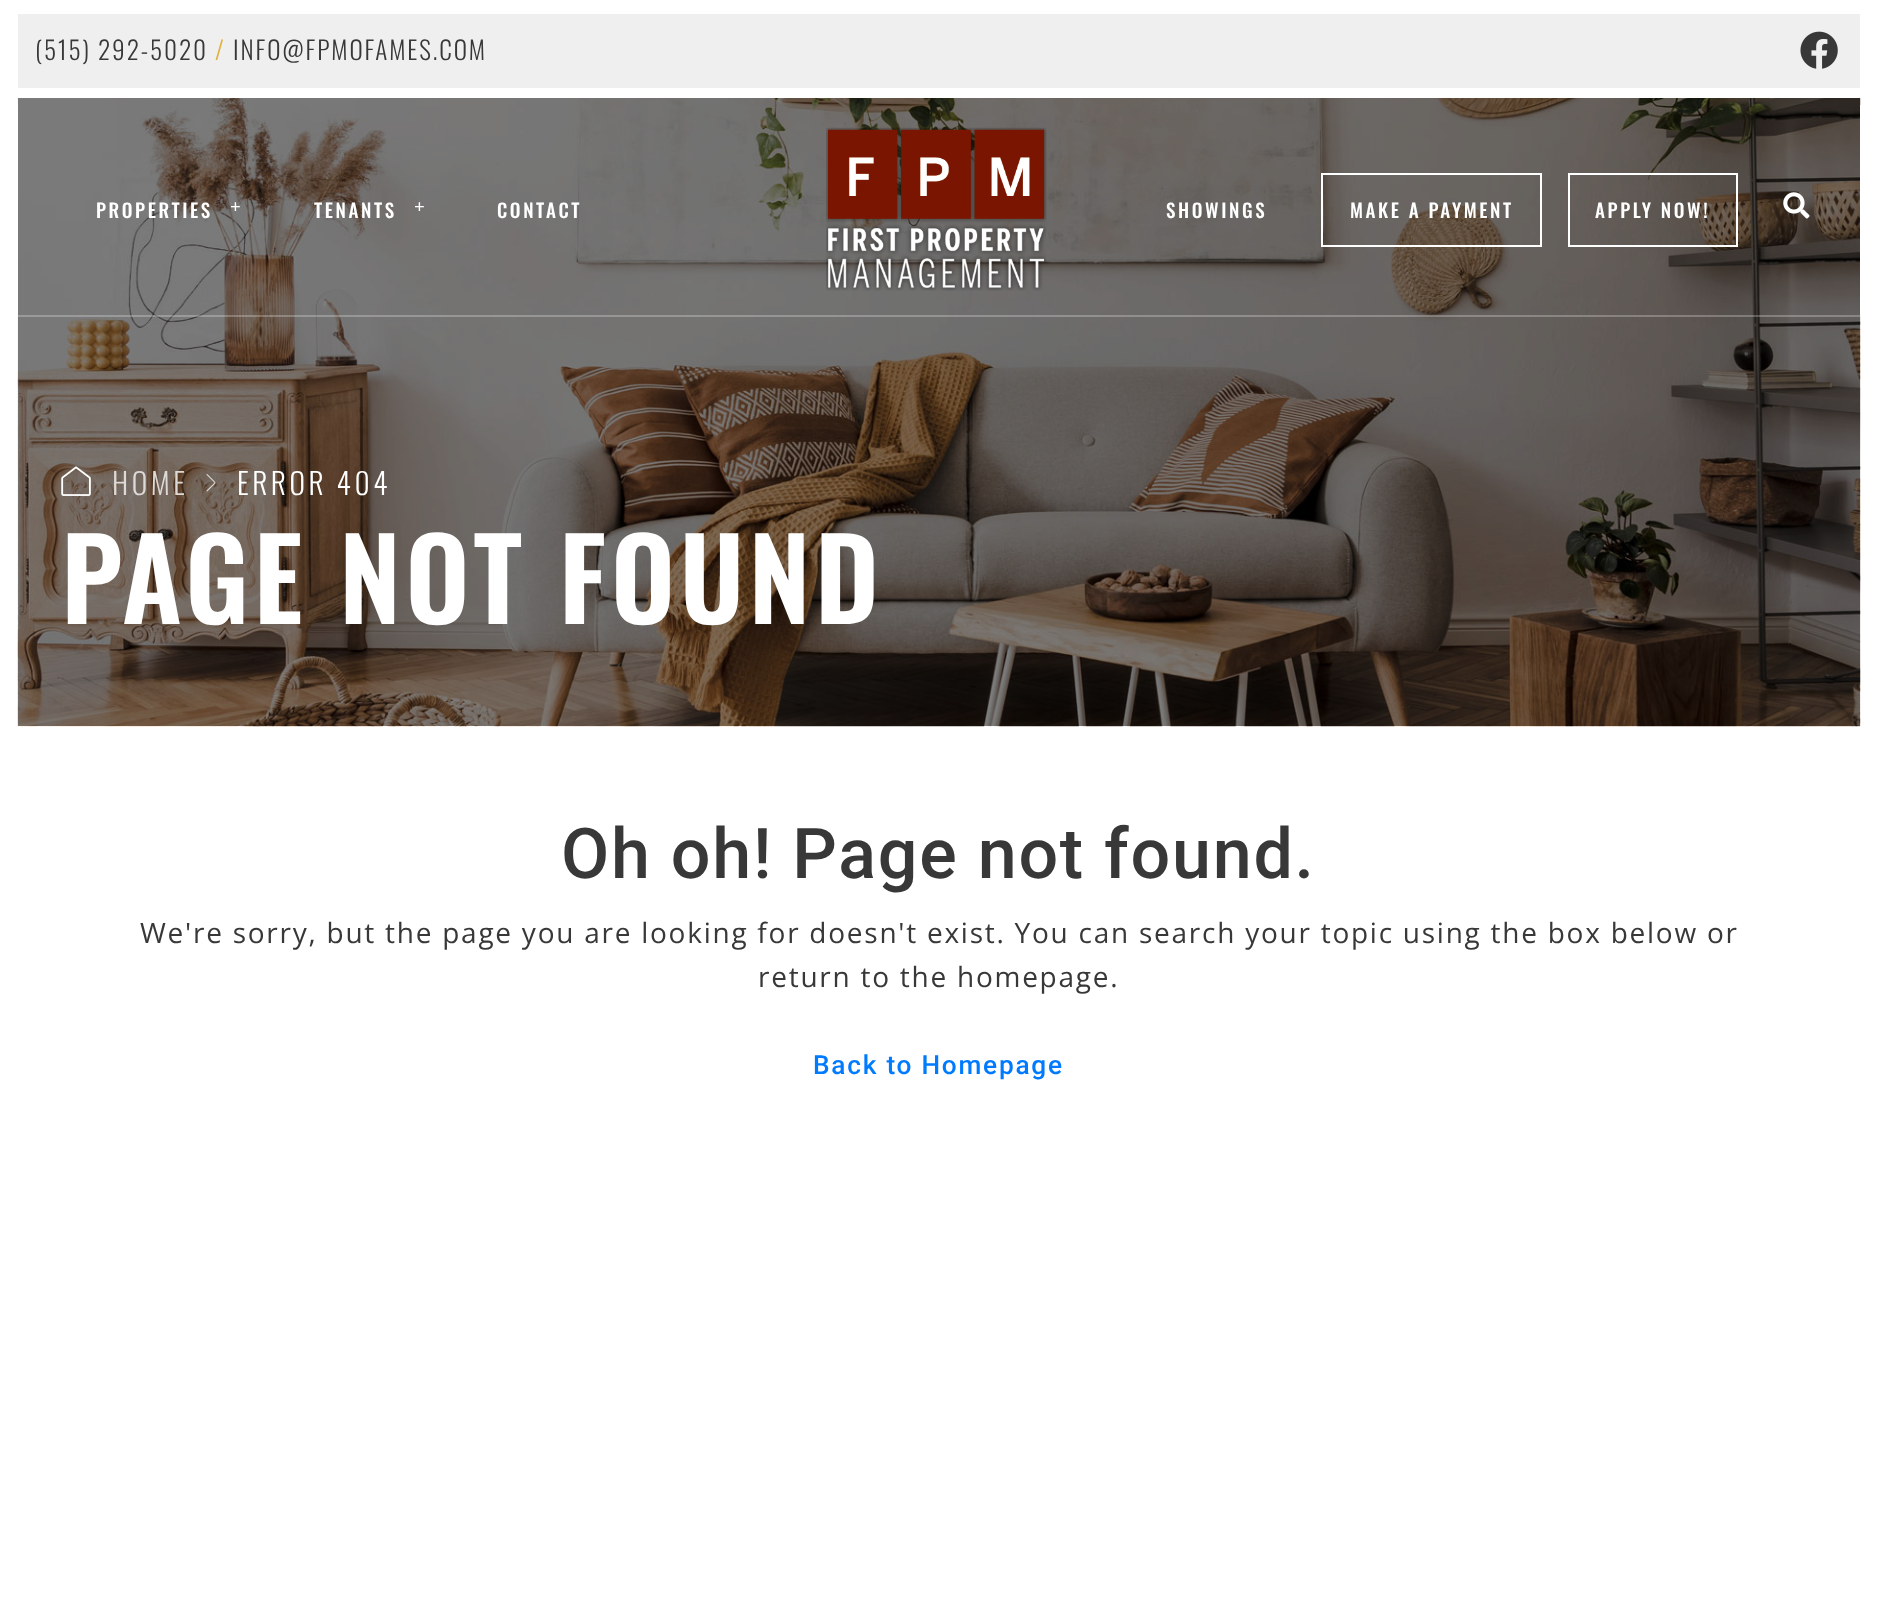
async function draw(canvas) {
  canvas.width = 1877
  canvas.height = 1614
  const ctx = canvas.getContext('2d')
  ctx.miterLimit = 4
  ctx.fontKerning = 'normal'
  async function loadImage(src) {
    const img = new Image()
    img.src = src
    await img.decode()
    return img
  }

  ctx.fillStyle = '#fff'
  ctx.fillRect(0, 0, 1877, 1614)
  ctx.fillStyle = '#efefef'
  ctx.fillRect(18, 14, 1842, 74)
  ctx.letterSpacing = '1.9px'
  ctx.font = '300 25.25px Oswald'
  ctx.fillStyle = '#383838'
  ctx.fillText('(515) 292-5020', 35, 60)
  ctx.fillStyle = '#dfb03a'
  ctx.fillText('/', 215, 60)
  ctx.fillStyle = '#383838'
  ctx.fillText('INFO@FPMOFAMES.COM', 233, 60)
  ctx.drawImage(await loadImage('image0.png'), 1800, 31, 38, 38)
  ctx.drawImage(await loadImage('image3.png'), 17, 98, 1844, 629)
  ctx.fillStyle = '#fff'
  ctx.beginPath()
  ctx.moveTo(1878, 105)
  ctx.lineTo(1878, 317)
  ctx.lineTo(1860, 315)
  ctx.lineTo(1860, 105)
  ctx.closePath()
  ctx.fill()
  ctx.fillStyle = '#ffffff40'
  ctx.beginPath()
  ctx.moveTo(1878, 317)
  ctx.lineTo(0, 317)
  ctx.lineTo(18, 315)
  ctx.lineTo(1860, 315)
  ctx.closePath()
  ctx.fill()
  ctx.fillStyle = '#fff'
  ctx.beginPath()
  ctx.moveTo(0, 317)
  ctx.lineTo(0, 105)
  ctx.lineTo(18, 105)
  ctx.lineTo(18, 315)
  ctx.closePath()
  ctx.fill()
  ctx.letterSpacing = '2.6px'
  ctx.font = '500 19px Oswald'
  ctx.fillText('PROPERTIES', 96, 218)
  ctx.font = 'bold 19px Liberation Serif'
  ctx.fillText('+', 230, 213)
  ctx.font = '500 19px Oswald'
  ctx.fillText('TENANTS', 314, 218)
  ctx.font = 'bold 19px Liberation Serif'
  ctx.fillText('+', 414, 213)
  ctx.font = '500 19px Oswald'
  ctx.fillText('CONTACT', 497, 218)
  ctx.drawImage(await loadImage('image1.png'), 826, 127, 221, 164)
  ctx.fillText('SHOWINGS', 1166, 218)
  ctx.strokeStyle = '#fff'
  ctx.lineWidth = 2
  ctx.strokeRect(1322, 174, 219, 72)
  ctx.fillText('MAKE A PAYMENT', 1350, 218)
  ctx.strokeRect(1569, 174, 168, 72)
  ctx.fillText('APPLY NOW!', 1595, 218)
  ctx.drawImage(await loadImage('image2.png'), 1783, 192, 27, 27)
  ctx.drawImage(await loadImage('image4.png'), 61, 466, 30, 30)
  ctx.letterSpacing = '3.5px'
  ctx.font = '300 29.5px Oswald'
  ctx.fillStyle = '#ddd9d7'
  ctx.fillText('HOME', 112, 495)
  ctx.drawImage(await loadImage('image5.png'), 206, 474, 10, 18)
  ctx.fillStyle = '#fff'
  ctx.fillText('ERROR 404', 237, 495)
  ctx.letterSpacing = '4.25px'
  ctx.font = '600 112px Oswald'
  ctx.fillText('PAGE NOT FOUND', 61, 624)
  ctx.letterSpacing = '1.75px'
  ctx.font = '500 70px Roboto'
  ctx.fillStyle = '#383838'
  ctx.fillText('Oh oh! Page not found.', 561, 878)
  ctx.font = '28px Open Sans'
  ctx.fillText('We\'re sorry, but the page you are looking for doesn\'t exist. You can search your topic using the box below or', 140, 943)
  ctx.fillText('return to the homepage.', 758, 987)
  ctx.font = '500 26.25px Roboto'
  ctx.fillStyle = '#007bff'
  ctx.fillText('Back to Homepage', 813, 1074)
}

draw(document.querySelector('canvas'))
